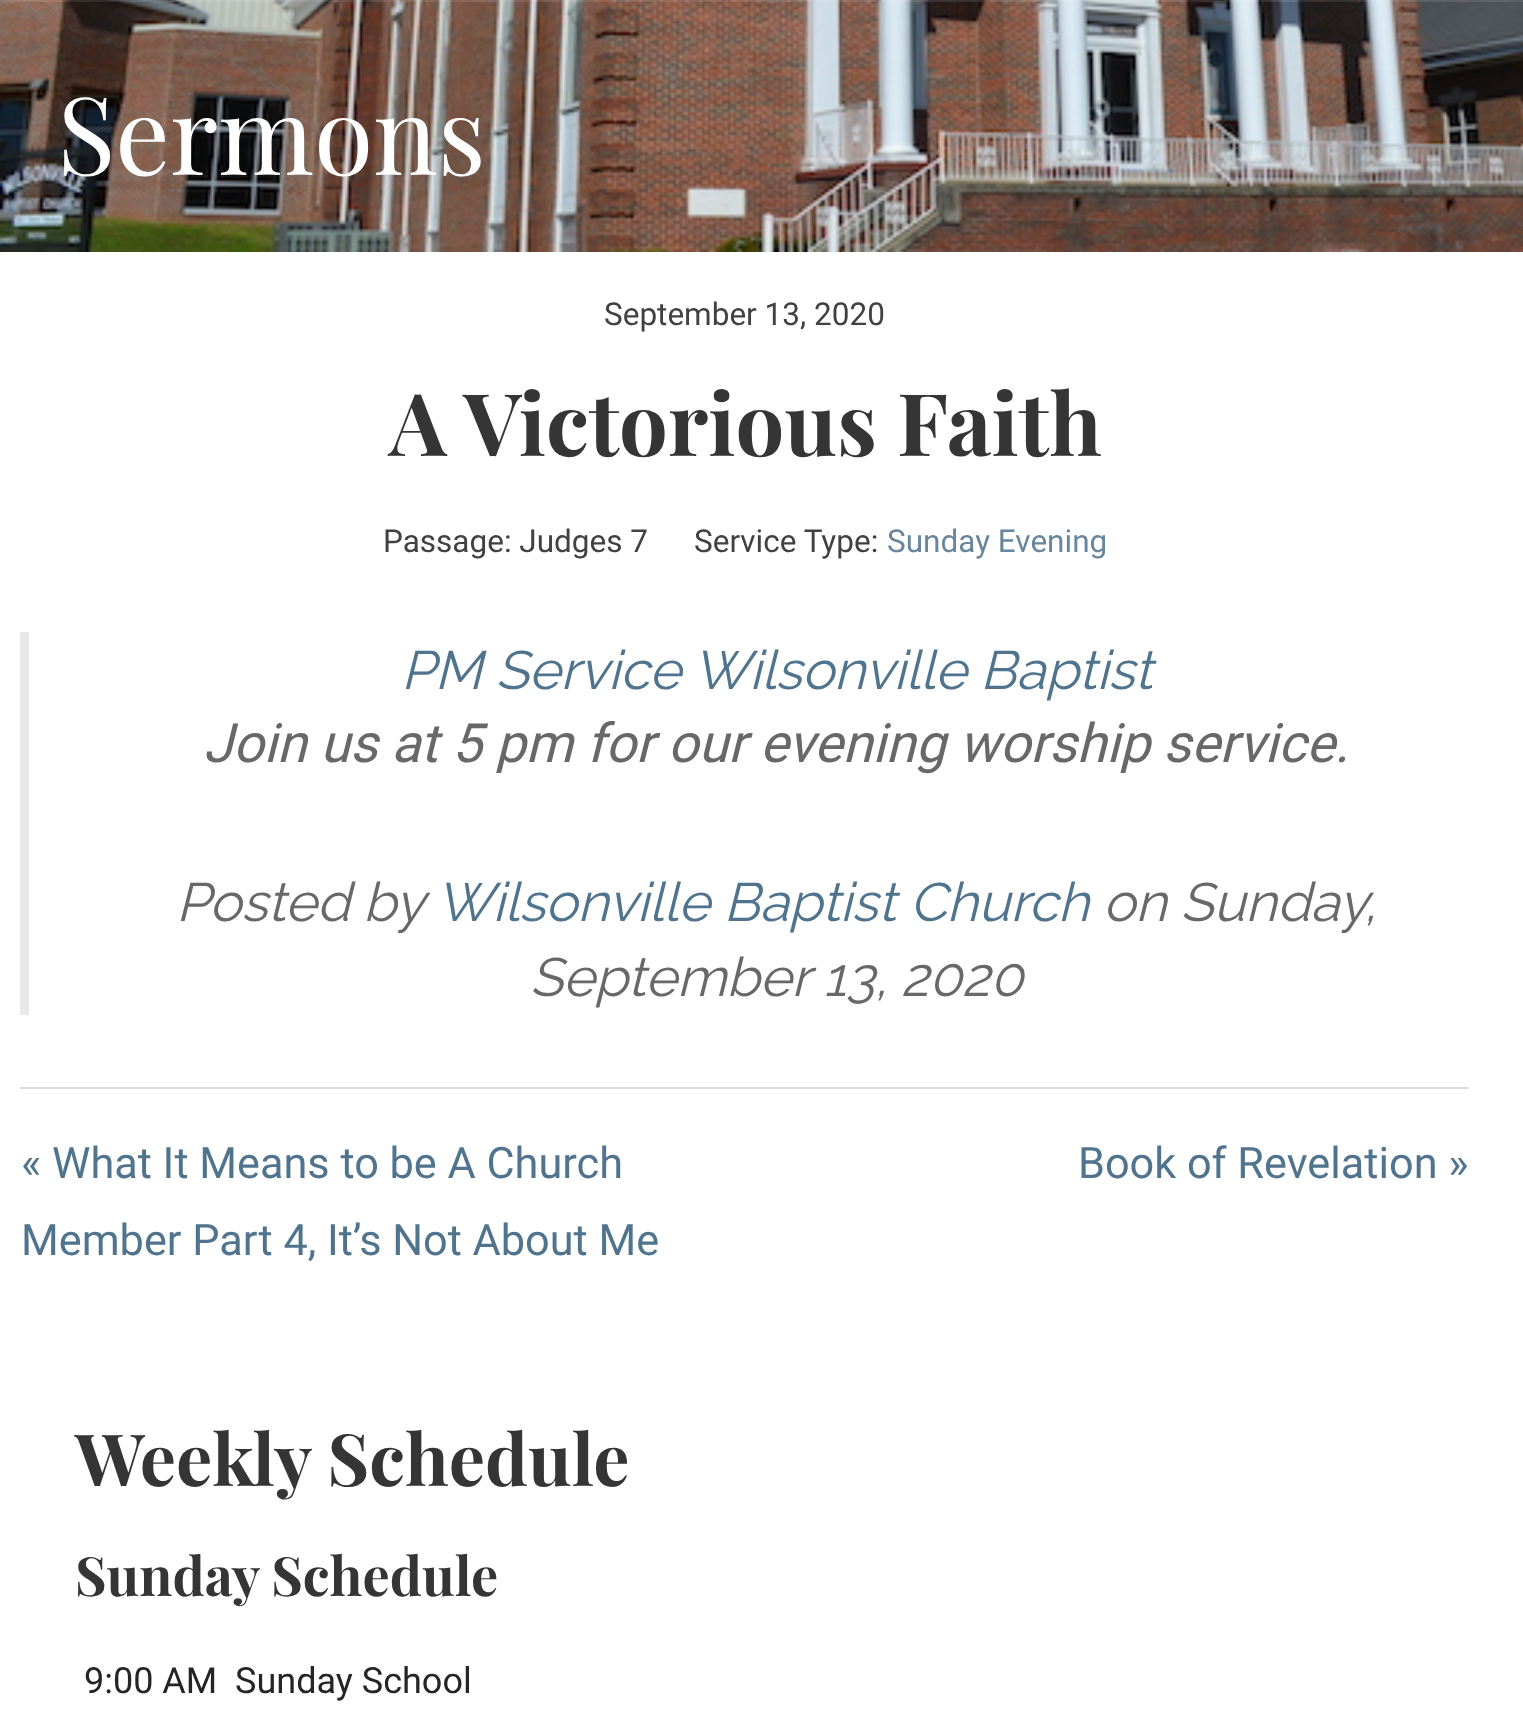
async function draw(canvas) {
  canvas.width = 1523
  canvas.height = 1729
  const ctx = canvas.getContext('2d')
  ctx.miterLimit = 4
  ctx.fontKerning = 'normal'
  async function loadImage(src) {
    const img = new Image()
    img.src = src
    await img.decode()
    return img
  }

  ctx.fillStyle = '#fff'
  ctx.fillRect(0, 0, 1523, 1729)
  ctx.drawImage(await loadImage('image0.png'), 0, 0, 1523, 252)
  ctx.fillStyle = '#ffffff1a'
  ctx.fillRect(0, 0, 1523, 2)
  ctx.font = '108px Playfair Display'
  ctx.fillStyle = '#fff'
  ctx.fillText('Sermons', 57, 175)
  ctx.font = '31.5px Roboto'
  ctx.fillStyle = '#414141'
  ctx.fillText('September 13, 2020', 604, 325)
  ctx.font = 'bold 86.5px Playfair Display'
  ctx.fillStyle = '#353535'
  ctx.fillText('A Victorious Faith', 389, 456)
  ctx.font = '31.5px Roboto'
  ctx.fillStyle = '#414141'
  ctx.fillText('Passage: Judges 7', 383, 552)
  ctx.fillText('Service Type:', 694, 552)
  ctx.fillStyle = '#68869d'
  ctx.fillText('Sunday Evening', 887, 552)
  ctx.fillStyle = '#e9e9e9'
  ctx.fillRect(20, 632, 9, 383)
  ctx.font = 'italic 54px Raleway'
  ctx.fillStyle = '#51748e'
  ctx.fillText('PM Service Wilsonville Baptist', 401, 689)
  ctx.font = 'italic 54px Roboto'
  ctx.fillStyle = '#686868'
  ctx.fillText('Join us at 5 pm for our evening worship service.', 203, 762)
  ctx.wordSpacing = '-1px'
  ctx.font = 'italic 54px Raleway'
  ctx.fillText('Posted by', 176, 921)
  ctx.wordSpacing = '0px'
  ctx.fillStyle = '#51748e'
  ctx.fillText('Wilsonville Baptist Church', 436, 921)
  ctx.fillStyle = '#686868'
  ctx.fillText('on Sunday,', 1103, 921)
  ctx.fillText('September 13, 2020', 530, 996)
  ctx.fillStyle = '#ddd'
  ctx.fillRect(20, 1087, 1449, 2)
  ctx.font = '43.25px Roboto'
  ctx.fillStyle = '#51748e'
  ctx.fillText('« What It Means to be A Church', 21, 1178)
  ctx.fillText('Member Part 4, It’s Not About Me', 21, 1255)
  ctx.fillText('Book of Revelation »', 1078, 1178)
  ctx.font = 'bold 72px Playfair Display'
  ctx.fillStyle = '#353535'
  ctx.fillText('Weekly Schedule', 75, 1486)
  ctx.font = 'bold 54px Playfair Display'
  ctx.fillText('Sunday Schedule', 75, 1596)
  ctx.font = '36px Roboto'
  ctx.fillStyle = '#252525'
  ctx.fillText('9:00 AM  Sunday School', 84, 1693)
}

draw(document.querySelector('canvas'))
